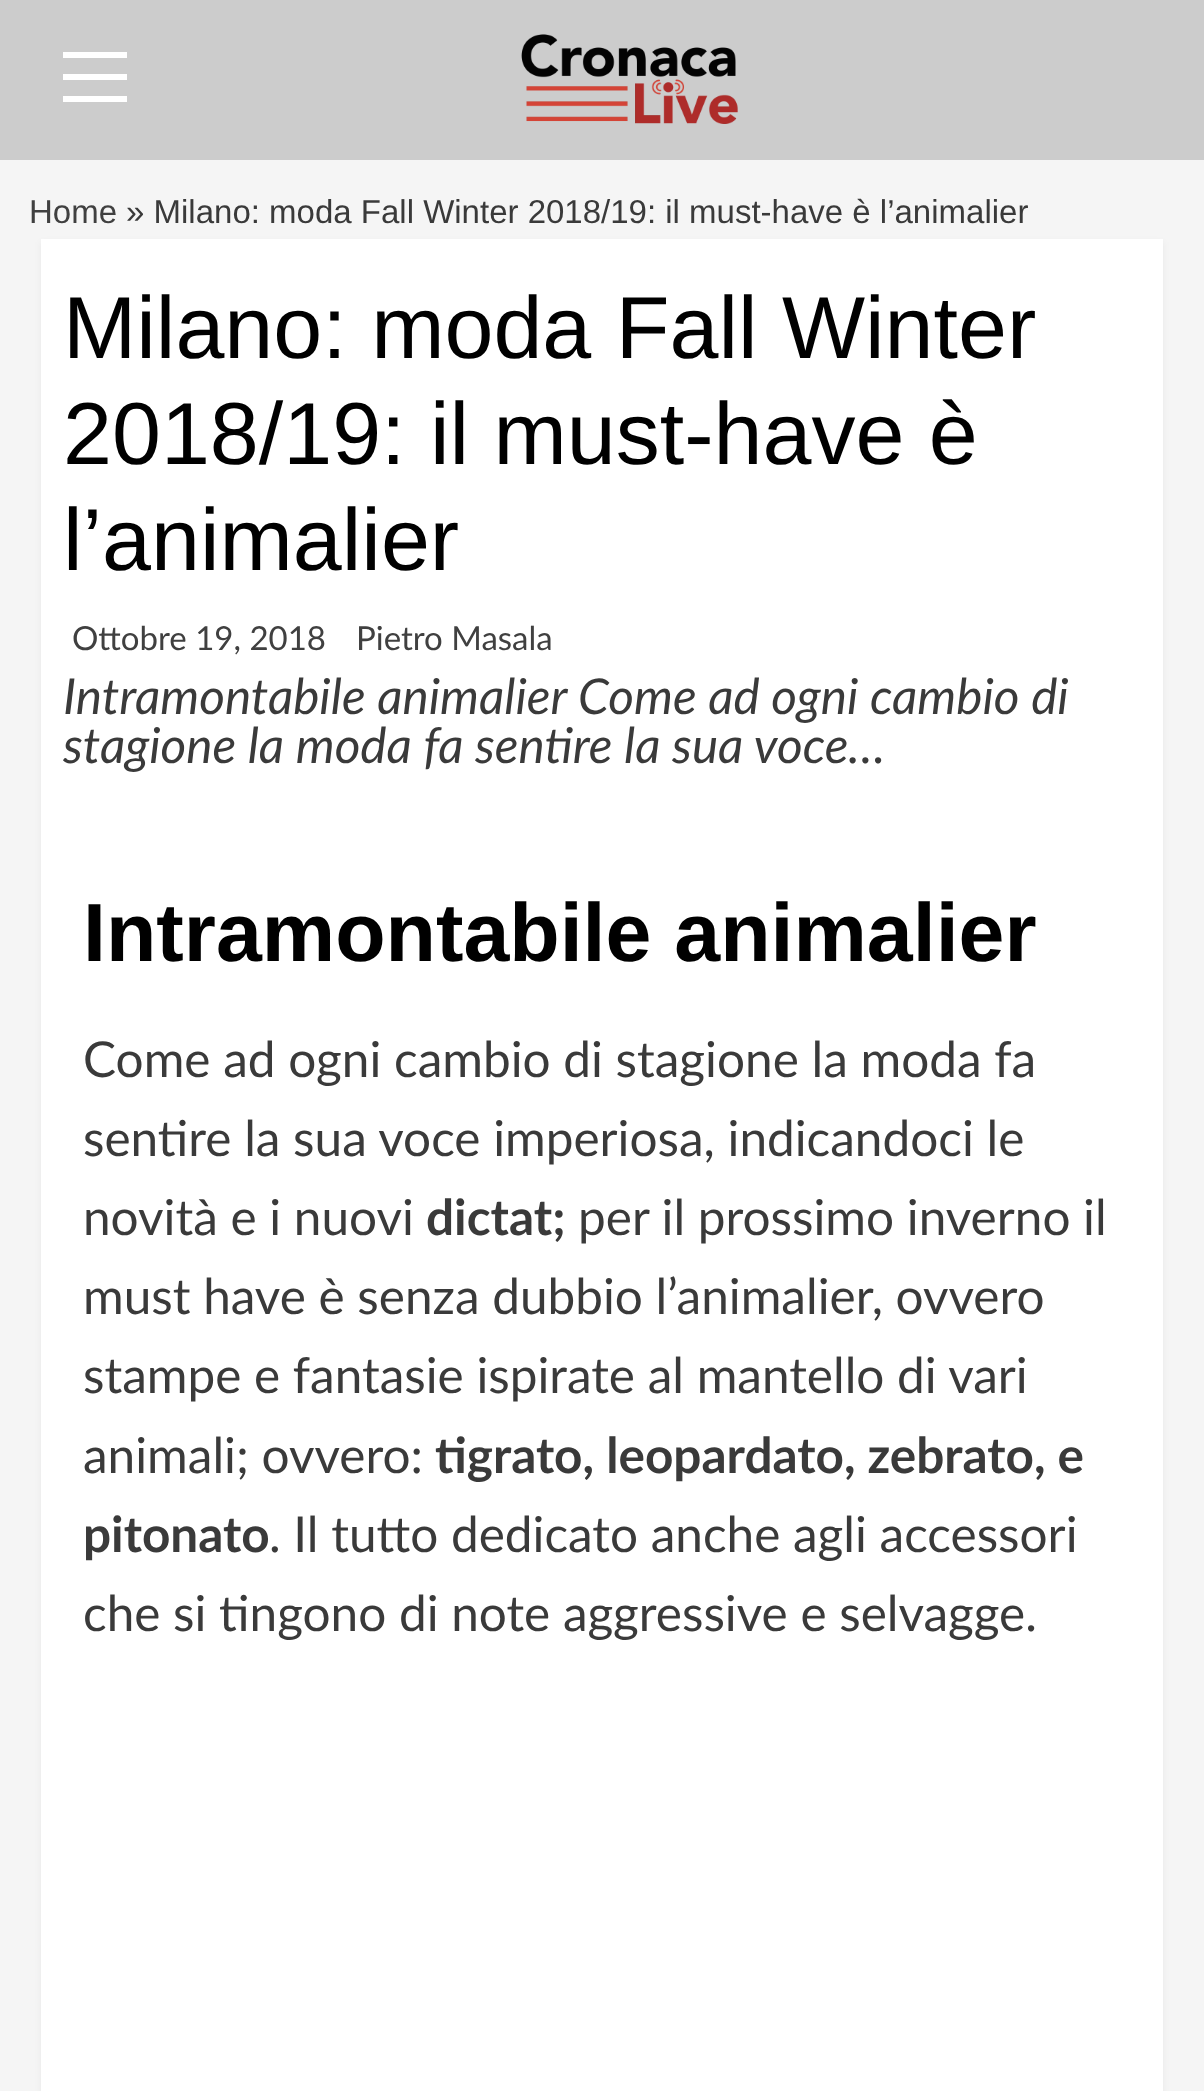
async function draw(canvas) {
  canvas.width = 1204
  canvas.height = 2091
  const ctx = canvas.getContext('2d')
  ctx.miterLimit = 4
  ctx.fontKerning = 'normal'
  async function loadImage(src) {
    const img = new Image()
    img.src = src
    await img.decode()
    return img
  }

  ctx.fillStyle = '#f5f5f5'
  ctx.fillRect(0, 0, 1204, 2091)
  ctx.fillStyle = '#ccc'
  ctx.fillRect(0, 0, 1204, 160)
  ctx.drawImage(await loadImage('image0.png'), 521, 34, 217, 90)
  ctx.fillStyle = '#fff'
  ctx.fillRect(63, 74, 64, 6)
  ctx.fillRect(63, 52, 64, 6)
  ctx.fillRect(63, 96, 64, 6)
  ctx.font = '33px Liberation Sans'
  ctx.fillStyle = '#404040'
  ctx.fillText('Home', 29, 223)
  ctx.fillStyle = '#3a3a3a'
  ctx.fillText('» Milano: moda Fall Winter 2018/19: il must-have è l’animalier', 126, 223)
  ctx.fillStyle = '#0000000d'
  ctx.filter = 'blur(3px)'
  ctx.beginPath()
  ctx.rect(41, 242, 1122, 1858)
  ctx.fill()
  ctx.filter = 'none'
  ctx.fillStyle = '#fff'
  ctx.fillRect(41, 239, 1122, 1852)
  ctx.font = '88px Liberation Sans'
  ctx.fillStyle = '#000'
  ctx.fillText('Milano: moda Fall Winter', 63, 358)
  ctx.fillText('2018/19: il must-have è', 63, 464)
  ctx.fillText('l’animalier', 63, 570)
  ctx.font = '33px Lato'
  ctx.fillStyle = '#404040'
  ctx.fillText('Ottobre 19, 2018', 72, 650)
  ctx.fillText('Pietro Masala', 356, 650)
  ctx.font = 'italic 49.5px Lato'
  ctx.fillStyle = '#3a3a3a'
  ctx.fillText('Intramontabile animalier Come ad ogni cambio di', 63, 714)
  ctx.fillText('stagione la moda fa sentire la sua voce…', 63, 763)
  ctx.font = 'bold 82.5px Liberation Sans'
  ctx.fillStyle = '#000'
  ctx.fillText('Intramontabile animalier', 83, 961)
  ctx.font = '49.5px Lato'
  ctx.fillStyle = '#3a3a3a'
  ctx.fillText('Come ad ogni cambio di stagione la moda fa', 83, 1077)
  ctx.fillText('sentire la sua voce imperiosa, indicandoci le', 83, 1156)
  ctx.fillText('novità e i nuovi', 83, 1235)
  ctx.font = 'bold 49.5px Lato'
  ctx.fillText('dictat;', 426, 1235)
  ctx.font = '49.5px Lato'
  ctx.fillText('per il prossimo inverno il', 578, 1235)
  ctx.fillText('must have è senza dubbio l’animalier, ovvero', 83, 1314)
  ctx.fillText('stampe e fantasie ispirate al mantello di vari', 83, 1393)
  ctx.fillText('animali; ovvero:', 83, 1473)
  ctx.font = 'bold 49.5px Lato'
  ctx.fillText('tigrato, leopardato, zebrato, e', 435, 1473)
  ctx.fillText('pitonato', 83, 1552)
  ctx.font = '49.5px Lato'
  ctx.fillText('. Il tutto dedicato anche agli accessori', 269, 1552)
  ctx.fillText('che si tingono di note aggressive e selvagge.', 83, 1631)
}

draw(document.querySelector('canvas'))
